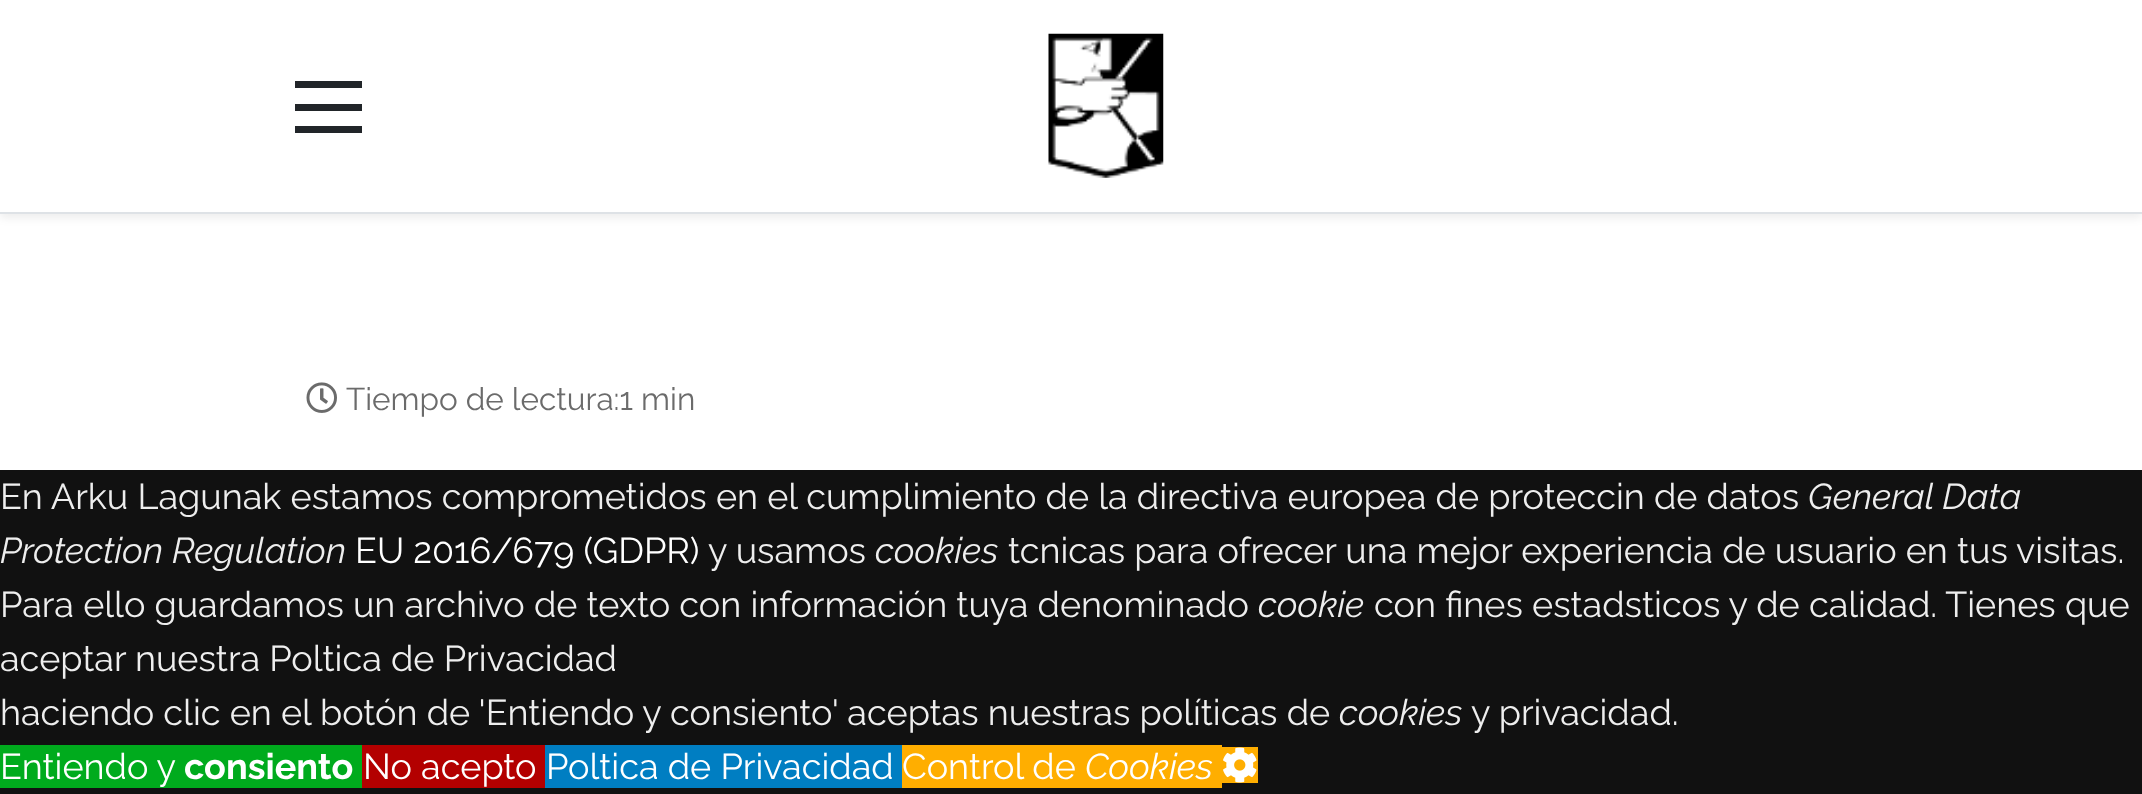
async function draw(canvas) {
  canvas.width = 2142
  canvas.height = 794
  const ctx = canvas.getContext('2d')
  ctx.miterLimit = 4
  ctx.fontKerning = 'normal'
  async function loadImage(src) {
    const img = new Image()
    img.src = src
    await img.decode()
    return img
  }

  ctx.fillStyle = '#fff'
  ctx.fillRect(0, 0, 2142, 794)
  ctx.fillStyle = '#00000012'
  ctx.filter = 'blur(4.5px)'
  ctx.beginPath()
  ctx.rect(0, 5, 2142, 213)
  ctx.fill()
  ctx.filter = 'none'
  ctx.fillStyle = '#fff'
  ctx.fillRect(0, 0, 2142, 212)
  ctx.fillStyle = '#dee2e6'
  ctx.fillRect(0, 212, 2142, 2)
  ctx.fillStyle = '#212529'
  ctx.fillRect(295, 104, 67, 7)
  ctx.fillRect(295, 81, 67, 7)
  ctx.fillRect(295, 126, 67, 7)
  ctx.drawImage(await loadImage('image0.png'), 1048, 33, 116, 145)
  ctx.drawImage(await loadImage('image1.png'), 306, 382, 31, 31)
  ctx.font = '31.5px Raleway'
  ctx.fillStyle = '#6b6b6b'
  ctx.fillText('Tiempo de lectura:1 min', 346, 410)
  ctx.fillStyle = '#111'
  ctx.fillRect(0, 470, 2142, 324)
  ctx.font = '36px Raleway'
  ctx.fillStyle = '#eee'
  ctx.fillText('En Arku Lagunak estamos comprometidos en el cumplimiento de la directiva europea de proteccin de datos', 0, 509)
  ctx.font = 'italic 36px Raleway'
  ctx.fillText('General Data', 1808, 509)
  ctx.fillText('Protection Regulation', 0, 563)
  ctx.font = '36px Raleway'
  ctx.fillStyle = '#fff'
  ctx.fillText('EU 2016/679 (GDPR)', 355, 563)
  ctx.fillStyle = '#eee'
  ctx.fillText('y usamos', 708, 563)
  ctx.font = 'italic 36px Raleway'
  ctx.fillText('cookies', 875, 563)
  ctx.font = '36px Raleway'
  ctx.fillText('tcnicas para ofrecer una mejor experiencia de usuario en tus visitas.', 1008, 563)
  ctx.fillText('Para ello guardamos un archivo de texto con información tuya denominado', 0, 617)
  ctx.font = 'italic 36px Raleway'
  ctx.fillText('cookie', 1258, 617)
  ctx.font = '36px Raleway'
  ctx.fillText('con fines estadsticos y de calidad. Tienes que', 1374, 617)
  ctx.fillText('aceptar nuestra Poltica de Privacidad', 0, 671)
  ctx.fillText('haciendo clic en el botón de \'Entiendo y consiento\' aceptas nuestras políticas de', 0, 725)
  ctx.font = 'italic 36px Raleway'
  ctx.fillText('cookies', 1339, 725)
  ctx.font = '36px Raleway'
  ctx.fillText('y privacidad.', 1471, 725)
  ctx.fillStyle = '#00ab1d'
  ctx.fillRect(0, 745, 362, 43)
  ctx.fillStyle = '#fff'
  ctx.fillText('Entiendo y', 0, 779)
  ctx.font = 'bold 36px Raleway'
  ctx.fillText('consiento', 184, 779)
  ctx.fillStyle = '#b30000'
  ctx.fillRect(362, 745, 183, 43)
  ctx.font = '36px Raleway'
  ctx.fillStyle = '#fff'
  ctx.fillText('No acepto', 363, 779)
  ctx.fillStyle = '#007ec2'
  ctx.fillRect(545, 745, 357, 43)
  ctx.fillStyle = '#fff'
  ctx.fillText('Poltica de Privacidad', 546, 779)
  ctx.fillStyle = '#ffae00'
  ctx.fillRect(902, 745, 320, 43)
  ctx.fillRect(1222, 747, 36, 36)
  ctx.fillStyle = '#fff'
  ctx.fillText('Control de', 902, 779)
  ctx.font = 'italic 36px Raleway'
  ctx.fillText('Cookies', 1085, 779)
  ctx.drawImage(await loadImage('image2.png'), 1223, 747, 34, 36)
}

draw(document.querySelector('canvas'))
